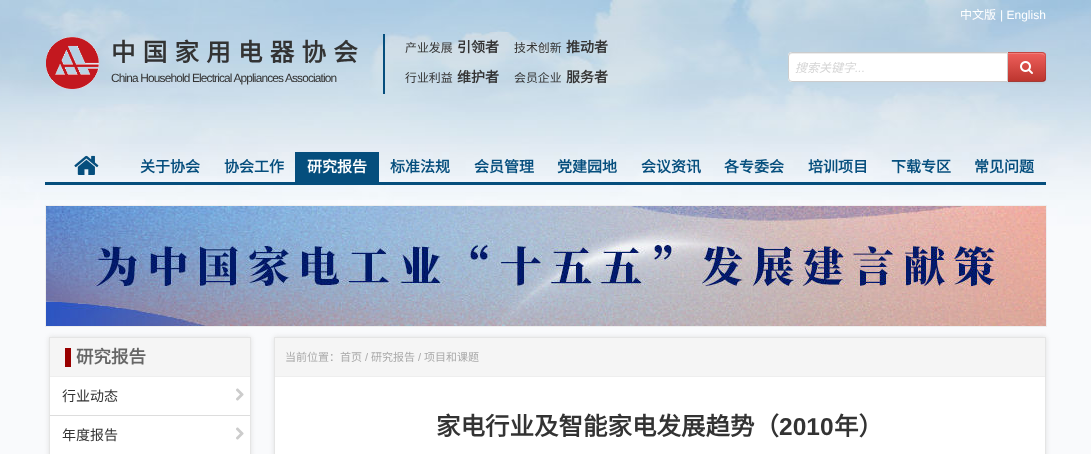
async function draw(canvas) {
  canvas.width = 1091
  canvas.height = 454
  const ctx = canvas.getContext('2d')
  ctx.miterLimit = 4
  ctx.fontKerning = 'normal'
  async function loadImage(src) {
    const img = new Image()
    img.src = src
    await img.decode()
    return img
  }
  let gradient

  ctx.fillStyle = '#f9fafc'
  ctx.fillRect(0, 0, 1091, 454)
  ctx.drawImage(await loadImage('image0.png'), 0, 0, 1091, 226)
  ctx.font = '12px Noto Sans CJK SC'
  ctx.fillStyle = '#fff'
  ctx.fillText('中文版', 960, 19)
  ctx.font = '12px Liberation Sans'
  ctx.fillText('| English', 1000, 19)
  ctx.drawImage(await loadImage('image1.png'), 46, 37, 53, 52)
  ctx.fillStyle = '#054e7d'
  ctx.fillRect(383, 34, 2, 60)
  ctx.letterSpacing = '7.25px'
  ctx.font = 'bold 24.5px Noto Sans CJK SC'
  ctx.fillStyle = '#333'
  ctx.fillText('中国家用电器协会', 111, 61)
  ctx.letterSpacing = '-0.85px'
  ctx.font = '11.9px Liberation Sans'
  ctx.fillText('China Household Electrical Appliances Association', 111, 82)
  ctx.letterSpacing = '0px'
  ctx.font = '11.9px Noto Sans CJK SC'
  ctx.fillText('产业发展', 405, 52)
  ctx.font = 'bold 14px Noto Sans CJK SC'
  ctx.fillText('引领者', 457, 52)
  ctx.font = '11.9px Noto Sans CJK SC'
  ctx.fillText('技术创新', 514, 52)
  ctx.font = 'bold 14px Noto Sans CJK SC'
  ctx.fillText('推动者', 566, 52)
  ctx.font = '11.9px Noto Sans CJK SC'
  ctx.fillText('行业利益', 405, 82)
  ctx.font = 'bold 14px Noto Sans CJK SC'
  ctx.fillText('维护者', 457, 82)
  ctx.font = '11.9px Noto Sans CJK SC'
  ctx.fillText('会员企业', 514, 82)
  ctx.font = 'bold 14px Noto Sans CJK SC'
  ctx.fillText('服务者', 566, 82)
  ctx.fillStyle = '#0000000d'
  ctx.filter = 'blur(1px)'
  ctx.beginPath()
  ctx.roundRect(1007, 53, 39, 30, 4)
  ctx.fill()
  ctx.filter = 'none'
  ctx.fillStyle = '#da4f49'
  ctx.beginPath()
  ctx.roundRect(1007, 52, 39, 30, [0, 4, 4, 0])
  ctx.fill()
  ctx.save()
  ctx.beginPath()
  ctx.roundRect(1007, 52, 39, 30, [0, 4, 4, 0])
  ctx.clip()
  gradient = ctx.createLinearGradient(1027, 53, 1027, 81)
  gradient.addColorStop(0, '#ee5f5b')
  gradient.addColorStop(1, '#bd362f')
  ctx.fillStyle = gradient
  ctx.fillRect(1008, 53, 38, 28)
  ctx.restore()
  ctx.fillStyle = '#ffffff33'
  ctx.beginPath()
  ctx.moveTo(1008, 54)
  ctx.lineTo(1036, 54)
  ctx.bezierCurveTo(1042, 54, 1044, 54.5, 1045, 56.5)
  ctx.lineTo(1045, 56)
  ctx.bezierCurveTo(1045, 54.5, 1043.5, 53, 1042, 53)
  ctx.lineTo(1008, 53)
  ctx.closePath()
  ctx.fill()
  ctx.fillStyle = '#0000001a'
  ctx.beginPath()
  ctx.moveTo(1007, 52)
  ctx.lineTo(1008, 53)
  ctx.lineTo(1042, 53)
  ctx.bezierCurveTo(1043, 53, 1043.5, 53.5, 1044, 54)
  ctx.lineTo(1045, 53)
  ctx.bezierCurveTo(1044, 52.5, 1043, 52, 1042, 52)
  ctx.closePath()
  ctx.fill()
  ctx.beginPath()
  ctx.moveTo(1046, 78)
  ctx.lineTo(1046, 56)
  ctx.bezierCurveTo(1046, 55, 1045.5, 54, 1045, 53)
  ctx.lineTo(1044, 54)
  ctx.bezierCurveTo(1044.5, 54.5, 1045, 55, 1045, 56)
  ctx.lineTo(1045, 78)
  ctx.bezierCurveTo(1045, 79, 1044.5, 79.5, 1044, 80)
  ctx.lineTo(1045, 81)
  ctx.bezierCurveTo(1045.5, 80, 1046, 79, 1046, 78)
  ctx.closePath()
  ctx.fill()
  ctx.fillStyle = '#00000040'
  ctx.beginPath()
  ctx.moveTo(1042, 82)
  ctx.bezierCurveTo(1043, 82, 1044, 81.5, 1045, 81)
  ctx.lineTo(1044, 80)
  ctx.bezierCurveTo(1043.5, 80.5, 1043, 81, 1042, 81)
  ctx.lineTo(1008, 81)
  ctx.lineTo(1007, 82)
  ctx.closePath()
  ctx.fill()
  ctx.fillStyle = '#fff'
  ctx.beginPath()
  ctx.roundRect(788, 52, 220, 30, [4, 0, 0, 4])
  ctx.fill()
  ctx.fillStyle = '#ececec'
  ctx.beginPath()
  ctx.moveTo(792, 54)
  ctx.lineTo(1007, 54)
  ctx.lineTo(1007, 53)
  ctx.lineTo(792, 53)
  ctx.bezierCurveTo(790, 53, 789, 54, 789, 56)
  ctx.lineTo(789, 57)
  ctx.bezierCurveTo(789, 55, 790, 54, 792, 54)
  ctx.closePath()
  ctx.fill()
  ctx.beginPath()
  ctx.roundRect(788.5, 52.5, 219, 29, [3.5, 0, 0, 3.5])
  ctx.strokeStyle = '#ccc'
  ctx.stroke()
  ctx.font = 'italic 12px Noto Sans CJK SC'
  ctx.fillStyle = '#d5d5d5'
  ctx.fillText('搜索关键字', 795, 72)
  ctx.font = 'italic 12px Liberation Sans'
  ctx.fillText('...', 855, 72)
  ctx.drawImage(await loadImage('image2.png'), 1020, 61, 13, 13)
  ctx.fillStyle = '#054e7d'
  ctx.fillRect(45, 182, 1001, 3)
  ctx.drawImage(await loadImage('image3.png'), 74, 155, 25, 20)
  ctx.font = 'bold 15px Noto Sans CJK SC'
  ctx.fillText('关于协会', 140, 172)
  ctx.fillText('协会工作', 224, 172)
  ctx.fillRect(295, 152, 84, 30)
  ctx.fillStyle = '#fff'
  ctx.fillText('研究报告', 307, 172)
  ctx.fillStyle = '#054e7d'
  ctx.fillText('标准法规', 390, 172)
  ctx.fillText('会员管理', 474, 172)
  ctx.fillText('党建园地', 557, 172)
  ctx.fillText('会议资讯', 641, 172)
  ctx.fillText('各专委会', 724, 172)
  ctx.fillText('培训项目', 808, 172)
  ctx.fillText('下载专区', 891, 172)
  ctx.fillText('常见问题', 974, 172)
  ctx.strokeStyle = '#eee'
  ctx.strokeRect(45.5, 205.5, 1001, 121)
  ctx.drawImage(await loadImage('image4.png'), 46, 206, 1000, 120)
  ctx.fillStyle = '#e0e0e0'
  ctx.filter = 'blur(2.5px)'
  ctx.beginPath()
  ctx.rect(49, 337, 202, 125)
  ctx.fill()
  ctx.filter = 'none'
  ctx.fillStyle = '#fff'
  ctx.fillRect(50, 377, 200, 77)
  ctx.strokeStyle = '#e5e5e5'
  ctx.strokeRect(49.5, 337.5, 201, 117)
  ctx.fillStyle = '#f5f5f5'
  ctx.fillRect(50, 338, 200, 38)
  ctx.fillStyle = '#eee'
  ctx.fillRect(50, 376, 200, 1)
  ctx.fillStyle = '#900'
  ctx.fillRect(65, 348, 6, 19)
  ctx.font = 'bold 17.5px Noto Sans CJK SC'
  ctx.fillStyle = '#666'
  ctx.fillText('研究报告', 76, 363)
  ctx.fillStyle = '#ddd'
  ctx.fillRect(50, 415, 200, 1)
  ctx.font = '14px Noto Sans CJK SC'
  ctx.fillStyle = '#333'
  ctx.fillText('行业动态', 62, 401)
  ctx.drawImage(await loadImage('image5.png'), 236, 388, 8, 13)
  ctx.fillText('年度报告', 62, 440)
  ctx.drawImage(await loadImage('image5.png'), 236, 427, 8, 13)
  ctx.fillStyle = '#e0e0e0'
  ctx.filter = 'blur(2.5px)'
  ctx.beginPath()
  ctx.rect(274, 337, 772, 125)
  ctx.fill()
  ctx.filter = 'none'
  ctx.fillStyle = '#fff'
  ctx.fillRect(275, 377, 770, 77)
  ctx.strokeRect(274.5, 337.5, 771, 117)
  ctx.fillStyle = '#f5f5f5'
  ctx.fillRect(275, 338, 770, 38)
  ctx.fillStyle = '#eee'
  ctx.fillRect(275, 376, 770, 1)
  ctx.font = '11px Noto Sans CJK SC'
  ctx.fillStyle = '#aaa'
  ctx.fillText('当前位置：首页', 285, 361)
  ctx.font = '11px Liberation Sans'
  ctx.fillText('/', 365, 361)
  ctx.font = '11px Noto Sans CJK SC'
  ctx.fillText('研究报告', 371, 361)
  ctx.font = '11px Liberation Sans'
  ctx.fillText('/', 418, 361)
  ctx.font = '11px Noto Sans CJK SC'
  ctx.fillText('项目和课题', 424, 361)
  ctx.font = 'bold 24.5px Noto Sans CJK SC'
  ctx.fillStyle = '#333'
  ctx.fillText('家电行业及智能家电发展趋势（', 436, 435)
  ctx.font = 'bold 24.5px Liberation Sans'
  ctx.fillText('2010', 779, 435)
  ctx.font = 'bold 24.5px Noto Sans CJK SC'
  ctx.fillText('年）', 834, 435)
}

draw(document.querySelector('canvas'))
